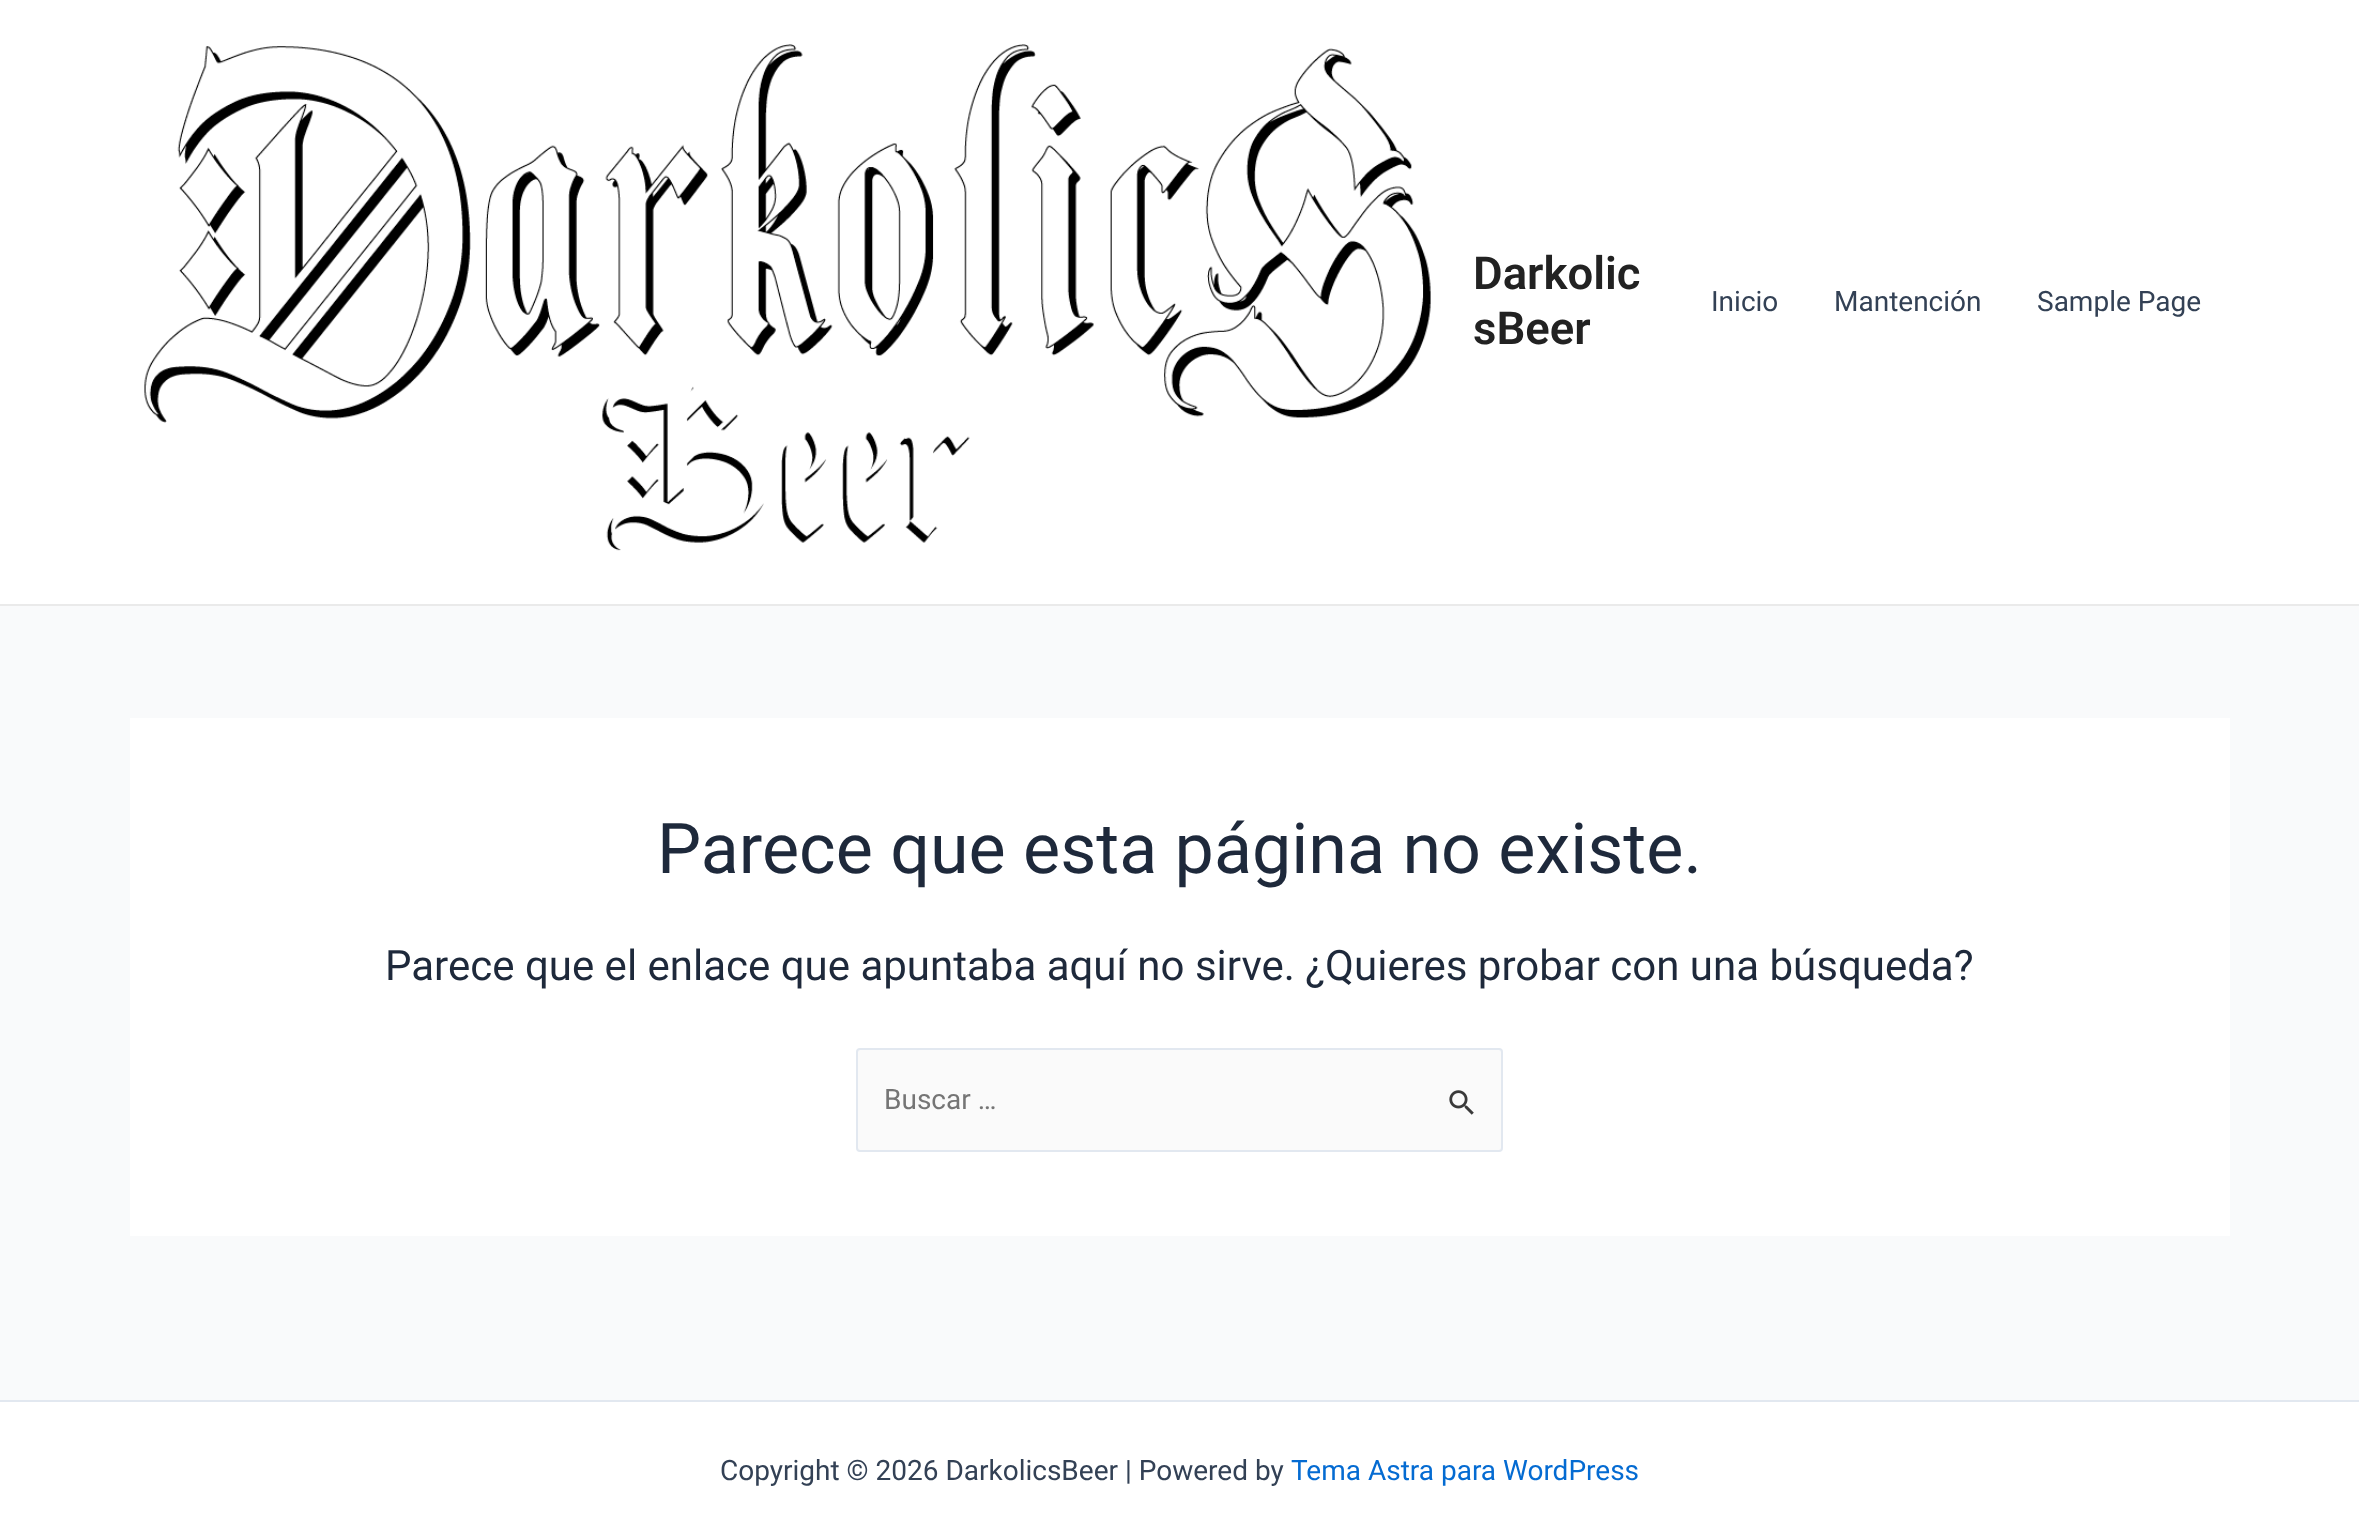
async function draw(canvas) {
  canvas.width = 2359
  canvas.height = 1540
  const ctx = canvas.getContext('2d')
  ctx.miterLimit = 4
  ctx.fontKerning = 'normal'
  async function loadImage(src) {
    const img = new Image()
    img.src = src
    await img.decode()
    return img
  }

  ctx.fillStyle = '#f9fafb'
  ctx.fillRect(0, 0, 2359, 1540)
  ctx.fillStyle = '#fff'
  ctx.fillRect(0, 0, 2359, 604)
  ctx.fillStyle = '#eaeaea'
  ctx.fillRect(0, 604, 2359, 2)
  ctx.drawImage(await loadImage('image0.png'), 144, 44, 1287, 507)
  ctx.font = '600 45.5px Roboto'
  ctx.fillStyle = '#222'
  ctx.fillText('Darkolic', 1473, 289)
  ctx.fillText('sBeer', 1473, 344)
  ctx.font = '28px Roboto'
  ctx.fillStyle = '#334155'
  ctx.fillText('Inicio', 1711, 311)
  ctx.fillText('Mantención', 1834, 311)
  ctx.fillText('Sample Page', 2037, 311)
  ctx.fillStyle = '#fff'
  ctx.fillRect(130, 718, 2100, 518)
  ctx.font = '70px Roboto'
  ctx.fillStyle = '#1e293b'
  ctx.fillText('Parece que esta página no existe.', 657, 873)
  ctx.font = '42px Roboto'
  ctx.fillText('Parece que el enlace que apuntaba aquí no sirve. ¿Quieres probar con una búsqueda?', 385, 980)
  ctx.fillStyle = '#fafafa'
  ctx.beginPath()
  ctx.roundRect(857, 1049, 645, 102, 3)
  ctx.fill()
  ctx.strokeStyle = '#e2e8f0'
  ctx.lineWidth = 2
  ctx.stroke()
  ctx.font = '28px Roboto'
  ctx.fillStyle = '#757575'
  ctx.fillText('Buscar …', 884, 1109)
  ctx.drawImage(await loadImage('image1.png'), 1449, 1090, 25, 25)
  ctx.fillStyle = '#fff'
  ctx.fillRect(0, 1402, 2359, 138)
  ctx.fillStyle = '#e2e8f0'
  ctx.fillRect(0, 1400, 2359, 2)
  ctx.fillStyle = '#334155'
  ctx.fillText('Copyright © 2026 DarkolicsBeer | Powered by', 720, 1480)
  ctx.fillStyle = '#046bd2'
  ctx.fillText('Tema Astra para WordPress', 1291, 1480)
}

draw(document.querySelector('canvas'))
